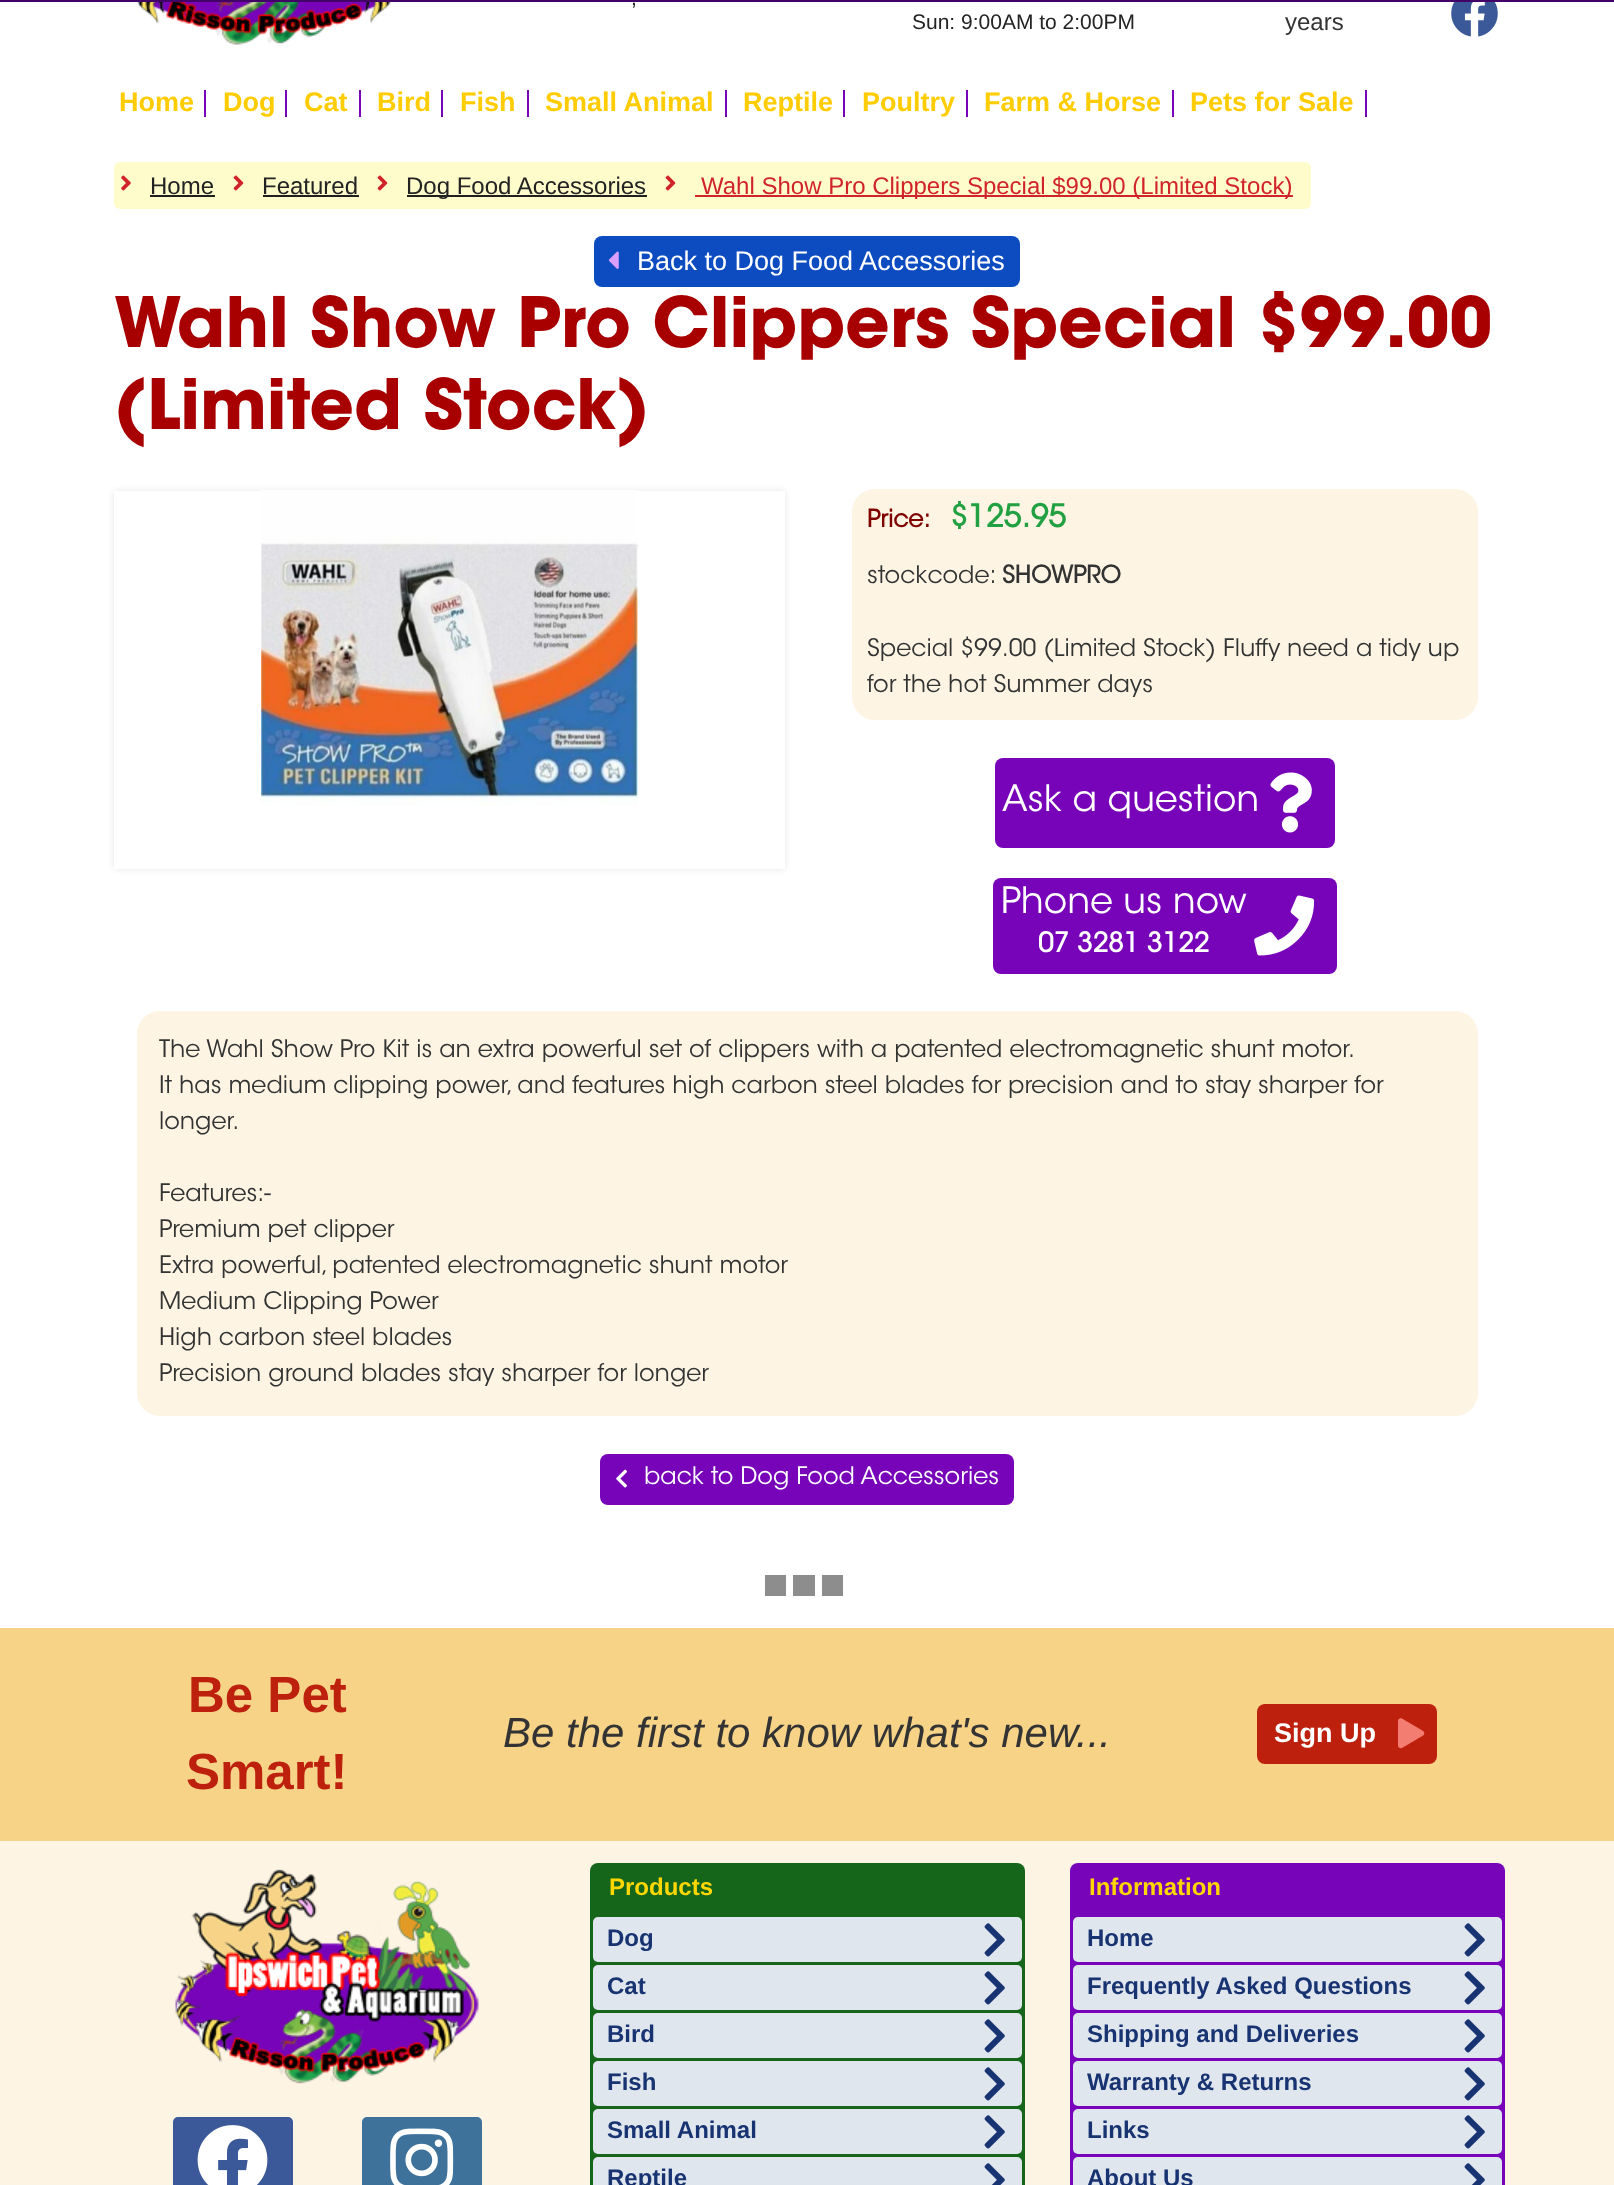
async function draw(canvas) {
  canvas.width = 1614
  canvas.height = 2185
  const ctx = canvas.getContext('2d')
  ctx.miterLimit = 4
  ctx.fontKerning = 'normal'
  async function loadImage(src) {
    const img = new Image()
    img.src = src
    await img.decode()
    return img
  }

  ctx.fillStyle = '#fff'
  ctx.fillRect(0, 0, 1614, 2185)
  ctx.fillStyle = '#420268'
  ctx.fillRect(0, 0, 1614, 2)
  ctx.drawImage(await loadImage('image0.png'), 136, 2, 256, 43)
  ctx.font = '21px Liberation Sans'
  ctx.fillStyle = '#232323'
  ctx.fillText(',', 631, 5)
  ctx.fillText('Sun: 9:00AM to 2:00PM', 912, 29)
  ctx.font = '24px Liberation Sans'
  ctx.fillStyle = '#333'
  ctx.fillText('years', 1285, 30)
  ctx.drawImage(await loadImage('image1.png'), 1451, 2, 47, 35)
  ctx.font = 'bold 27px Liberation Sans'
  ctx.fillStyle = '#fc0'
  ctx.fillText('Home', 119, 111)
  ctx.fillStyle = '#7704b9'
  ctx.fillRect(204, 90, 2, 27)
  ctx.fillStyle = '#fc0'
  ctx.fillText('Dog', 223, 111)
  ctx.fillStyle = '#7704b9'
  ctx.fillRect(285, 90, 2, 27)
  ctx.fillStyle = '#fc0'
  ctx.fillText('Cat', 304, 111)
  ctx.fillStyle = '#7704b9'
  ctx.fillRect(359, 90, 2, 27)
  ctx.fillStyle = '#fc0'
  ctx.fillText('Bird', 377, 111)
  ctx.fillStyle = '#7704b9'
  ctx.fillRect(441, 90, 2, 27)
  ctx.fillStyle = '#fc0'
  ctx.fillText('Fish', 460, 111)
  ctx.fillStyle = '#7704b9'
  ctx.fillRect(527, 90, 2, 27)
  ctx.fillStyle = '#fc0'
  ctx.fillText('Small Animal', 545, 111)
  ctx.fillStyle = '#7704b9'
  ctx.fillRect(725, 90, 2, 27)
  ctx.fillStyle = '#fc0'
  ctx.fillText('Reptile', 743, 111)
  ctx.fillStyle = '#7704b9'
  ctx.fillRect(843, 90, 2, 27)
  ctx.fillStyle = '#fc0'
  ctx.fillText('Poultry', 862, 111)
  ctx.fillStyle = '#7704b9'
  ctx.fillRect(966, 90, 2, 27)
  ctx.fillStyle = '#fc0'
  ctx.fillText('Farm & Horse', 984, 111)
  ctx.fillStyle = '#7704b9'
  ctx.fillRect(1172, 90, 2, 27)
  ctx.fillStyle = '#fc0'
  ctx.fillText('Pets for Sale', 1190, 111)
  ctx.fillStyle = '#7704b9'
  ctx.fillRect(1365, 90, 2, 27)
  ctx.fillStyle = '#fffccc'
  ctx.beginPath()
  ctx.roundRect(114, 162, 1197, 47, 6)
  ctx.fill()
  ctx.drawImage(await loadImage('image2.png'), 121, 175, 10, 16)
  ctx.font = '24px Liberation Sans'
  ctx.fillStyle = '#232323'
  ctx.fillText('Home', 150, 194)
  ctx.fillStyle = '#211e1f'
  ctx.fillRect(150, 195, 65, 2)
  ctx.drawImage(await loadImage('image3.png'), 233, 175, 11, 16)
  ctx.fillStyle = '#232323'
  ctx.fillText('Featured', 262, 194)
  ctx.fillStyle = '#211e1f'
  ctx.fillRect(263, 195, 96, 2)
  ctx.drawImage(await loadImage('image3.png'), 377, 175, 11, 16)
  ctx.fillRect(407, 195, 240, 2)
  ctx.fillStyle = '#232323'
  ctx.fillText('Dog Food Accessories', 406, 194)
  ctx.drawImage(await loadImage('image3.png'), 665, 175, 11, 16)
  ctx.fillStyle = '#d12429'
  ctx.fillRect(695, 195, 598, 2)
  ctx.fillText('Wahl Show Pro Clippers Special $99.00 (Limited Stock)', 701, 194)
  ctx.fillStyle = '#0c4bc0'
  ctx.beginPath()
  ctx.roundRect(594, 236, 426, 51, 8)
  ctx.fill()
  ctx.drawImage(await loadImage('image4.png'), 608, 251, 11, 18)
  ctx.font = '27px Liberation Sans'
  ctx.fillStyle = '#fff'
  ctx.fillText('Back to Dog Food Accessories', 637, 270)
  ctx.font = 'bold 69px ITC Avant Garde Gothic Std'
  ctx.fillStyle = '#a80000'
  ctx.fillText('Wahl Show Pro Clippers Special $99.00', 114, 347)
  ctx.fillText('(Limited Stock)', 114, 429)
  ctx.fillStyle = '#0000001a'
  ctx.filter = 'blur(3px)'
  ctx.beginPath()
  ctx.rect(114, 491, 671, 378)
  ctx.fill()
  ctx.filter = 'none'
  ctx.fillStyle = '#fff'
  ctx.fillRect(114, 491, 671, 378)
  ctx.drawImage(await loadImage('image5.png'), 261, 490, 377, 315)
  ctx.fillStyle = '#fdf4e3'
  ctx.beginPath()
  ctx.roundRect(852, 489, 626, 231, 23)
  ctx.fill()
  ctx.font = 'bold 24px "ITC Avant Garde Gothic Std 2"'
  ctx.fillStyle = '#800000'
  ctx.fillText('Price:', 867, 527)
  ctx.font = 'bold 31px "ITC Avant Garde Gothic Std 2"'
  ctx.fillStyle = '#22a142'
  ctx.fillText('$125.95', 950, 527)
  ctx.font = '300 24px ITC Avant Garde Gothic Std'
  ctx.fillStyle = '#333'
  ctx.fillText('stockcode:', 867, 583)
  ctx.font = 'bold 24px "ITC Avant Garde Gothic Std 2"'
  ctx.fillText('SHOWPRO', 1002, 583)
  ctx.font = '300 24px ITC Avant Garde Gothic Std'
  ctx.fillText('Special $99.00 (Limited Stock) Fluffy need a tidy up', 867, 656)
  ctx.fillText('for the hot Summer days', 867, 692)
  ctx.fillStyle = '#7704b9'
  ctx.beginPath()
  ctx.roundRect(995, 758, 340, 90, 8)
  ctx.fill()
  ctx.font = '300 36px ITC Avant Garde Gothic Std'
  ctx.fillStyle = '#fff'
  ctx.fillText('Ask a question', 1002, 811)
  ctx.drawImage(await loadImage('image6.png'), 1270, 772, 42, 61)
  ctx.fillStyle = '#7704b9'
  ctx.beginPath()
  ctx.roundRect(993, 878, 344, 96, 8)
  ctx.fill()
  ctx.fillStyle = '#fff'
  ctx.fillText('Phone us now', 1001, 913)
  ctx.font = 'bold 27px "ITC Avant Garde Gothic Std 2"'
  ctx.fillText('07 3281 3122', 1038, 952)
  ctx.drawImage(await loadImage('image7.png'), 1254, 895, 61, 61)
  ctx.fillStyle = '#fdf4e3'
  ctx.beginPath()
  ctx.roundRect(137, 1011, 1341, 405, 23)
  ctx.fill()
  ctx.font = '300 24px ITC Avant Garde Gothic Std'
  ctx.fillStyle = '#333'
  ctx.fillText('The Wahl Show Pro Kit is an extra powerful set of clippers with a patented electromagnetic shunt motor.', 159, 1057)
  ctx.fillText('It has medium clipping power, and features high carbon steel blades for precision and to stay sharper for', 159, 1093)
  ctx.fillText('longer.', 159, 1129)
  ctx.fillText('Features:-', 159, 1201)
  ctx.fillText('Premium pet clipper', 159, 1237)
  ctx.fillText('Extra powerful, patented electromagnetic shunt motor', 159, 1273)
  ctx.fillText('Medium Clipping Power', 159, 1309)
  ctx.fillText('High carbon steel blades', 159, 1345)
  ctx.fillText('Precision ground blades stay sharper for longer', 159, 1381)
  ctx.fillStyle = '#7704b9'
  ctx.beginPath()
  ctx.roundRect(600, 1454, 414, 51, 8)
  ctx.fill()
  ctx.drawImage(await loadImage('image8.png'), 616, 1469, 11, 19)
  ctx.fillStyle = '#fff'
  ctx.fillText('back to Dog Food Accessories', 644, 1484)
  ctx.fillStyle = '#8d8d8d'
  ctx.fillRect(765, 1575, 21, 21)
  ctx.fillRect(793, 1575, 22, 21)
  ctx.fillRect(822, 1575, 21, 21)
  ctx.fillStyle = '#f6d387'
  ctx.fillRect(0, 1628, 1614, 213)
  ctx.font = 'bold 51px Liberation Sans'
  ctx.fillStyle = '#be200e'
  ctx.fillText('Be Pet', 188, 1712)
  ctx.fillText('Smart!', 186, 1789)
  ctx.font = 'italic 42px Liberation Sans'
  ctx.fillStyle = '#333'
  ctx.fillText('Be the first to know what\'s new...', 503, 1747)
  ctx.fillStyle = '#be200e'
  ctx.beginPath()
  ctx.roundRect(1257, 1704, 180, 60, 8)
  ctx.fill()
  ctx.font = 'bold 27px Liberation Sans'
  ctx.fillStyle = '#fff'
  ctx.fillText('Sign Up', 1274, 1742)
  ctx.drawImage(await loadImage('image9.png'), 1398, 1718, 27, 31)
  ctx.fillStyle = '#fdf4e3'
  ctx.fillRect(0, 1841, 1614, 344)
  ctx.drawImage(await loadImage('image10.png'), 175, 1869, 304, 215)
  ctx.fillStyle = '#3b5998'
  ctx.beginPath()
  ctx.roundRect(173, 2117, 120, 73, 5)
  ctx.fill()
  ctx.drawImage(await loadImage('image11.png'), 197, 2125, 71, 60)
  ctx.fillStyle = '#3f729b'
  ctx.beginPath()
  ctx.roundRect(362, 2117, 120, 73, 5)
  ctx.fill()
  ctx.drawImage(await loadImage('image12.png'), 390, 2128, 64, 57)
  ctx.fillStyle = '#15651a'
  ctx.beginPath()
  ctx.roundRect(590, 1863, 435, 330, 8)
  ctx.fill()
  ctx.font = 'bold 24px Liberation Sans'
  ctx.fillStyle = '#ffd700'
  ctx.fillText('Products', 609, 1895)
  ctx.fillStyle = '#e0e6ed'
  ctx.beginPath()
  ctx.roundRect(593, 1917, 429, 45, 5)
  ctx.fill()
  ctx.fillStyle = '#183372'
  ctx.fillText('Dog', 607, 1946)
  ctx.drawImage(await loadImage('image13.png'), 984, 1923, 21, 34)
  ctx.fillStyle = '#e0e6ed'
  ctx.beginPath()
  ctx.roundRect(593, 1965, 429, 45, 5)
  ctx.fill()
  ctx.fillStyle = '#183372'
  ctx.fillText('Cat', 607, 1994)
  ctx.drawImage(await loadImage('image13.png'), 984, 1971, 21, 34)
  ctx.fillStyle = '#e0e6ed'
  ctx.beginPath()
  ctx.roundRect(593, 2013, 429, 45, 5)
  ctx.fill()
  ctx.fillStyle = '#183372'
  ctx.fillText('Bird', 607, 2042)
  ctx.drawImage(await loadImage('image13.png'), 984, 2019, 21, 34)
  ctx.fillStyle = '#e0e6ed'
  ctx.beginPath()
  ctx.roundRect(593, 2061, 429, 45, 5)
  ctx.fill()
  ctx.fillStyle = '#183372'
  ctx.fillText('Fish', 607, 2090)
  ctx.drawImage(await loadImage('image13.png'), 984, 2067, 21, 34)
  ctx.fillStyle = '#e0e6ed'
  ctx.beginPath()
  ctx.roundRect(593, 2109, 429, 45, 5)
  ctx.fill()
  ctx.fillStyle = '#183372'
  ctx.fillText('Small Animal', 607, 2138)
  ctx.drawImage(await loadImage('image13.png'), 984, 2115, 21, 34)
  ctx.fillStyle = '#e0e6ed'
  ctx.beginPath()
  ctx.roundRect(593, 2157, 429, 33, 5)
  ctx.fill()
  ctx.fillStyle = '#183372'
  ctx.fillText('Reptile', 607, 2186)
  ctx.drawImage(await loadImage('image14.png'), 984, 2163, 21, 22)
  ctx.fillStyle = '#7704b9'
  ctx.beginPath()
  ctx.roundRect(1070, 1863, 435, 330, 8)
  ctx.fill()
  ctx.fillStyle = '#ffd700'
  ctx.fillText('Information', 1089, 1895)
  ctx.fillStyle = '#e0e6ed'
  ctx.beginPath()
  ctx.roundRect(1073, 1917, 429, 45, 5)
  ctx.fill()
  ctx.fillStyle = '#183372'
  ctx.fillText('Home', 1087, 1946)
  ctx.drawImage(await loadImage('image13.png'), 1464, 1923, 21, 34)
  ctx.fillStyle = '#e0e6ed'
  ctx.beginPath()
  ctx.roundRect(1073, 1965, 429, 45, 5)
  ctx.fill()
  ctx.fillStyle = '#183372'
  ctx.fillText('Frequently Asked Questions', 1087, 1994)
  ctx.drawImage(await loadImage('image13.png'), 1464, 1971, 21, 34)
  ctx.fillStyle = '#e0e6ed'
  ctx.beginPath()
  ctx.roundRect(1073, 2013, 429, 45, 5)
  ctx.fill()
  ctx.fillStyle = '#183372'
  ctx.fillText('Shipping and Deliveries', 1087, 2042)
  ctx.drawImage(await loadImage('image13.png'), 1464, 2019, 21, 34)
  ctx.fillStyle = '#e0e6ed'
  ctx.beginPath()
  ctx.roundRect(1073, 2061, 429, 45, 5)
  ctx.fill()
  ctx.fillStyle = '#183372'
  ctx.fillText('Warranty & Returns', 1087, 2090)
  ctx.drawImage(await loadImage('image13.png'), 1464, 2067, 21, 34)
  ctx.fillStyle = '#e0e6ed'
  ctx.beginPath()
  ctx.roundRect(1073, 2109, 429, 45, 5)
  ctx.fill()
  ctx.fillStyle = '#183372'
  ctx.fillText('Links', 1087, 2138)
  ctx.drawImage(await loadImage('image13.png'), 1464, 2115, 21, 34)
  ctx.fillStyle = '#e0e6ed'
  ctx.beginPath()
  ctx.roundRect(1073, 2157, 429, 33, 5)
  ctx.fill()
  ctx.fillStyle = '#183372'
  ctx.fillText('About Us', 1087, 2186)
  ctx.drawImage(await loadImage('image14.png'), 1464, 2163, 21, 22)
}

draw(document.querySelector('canvas'))
